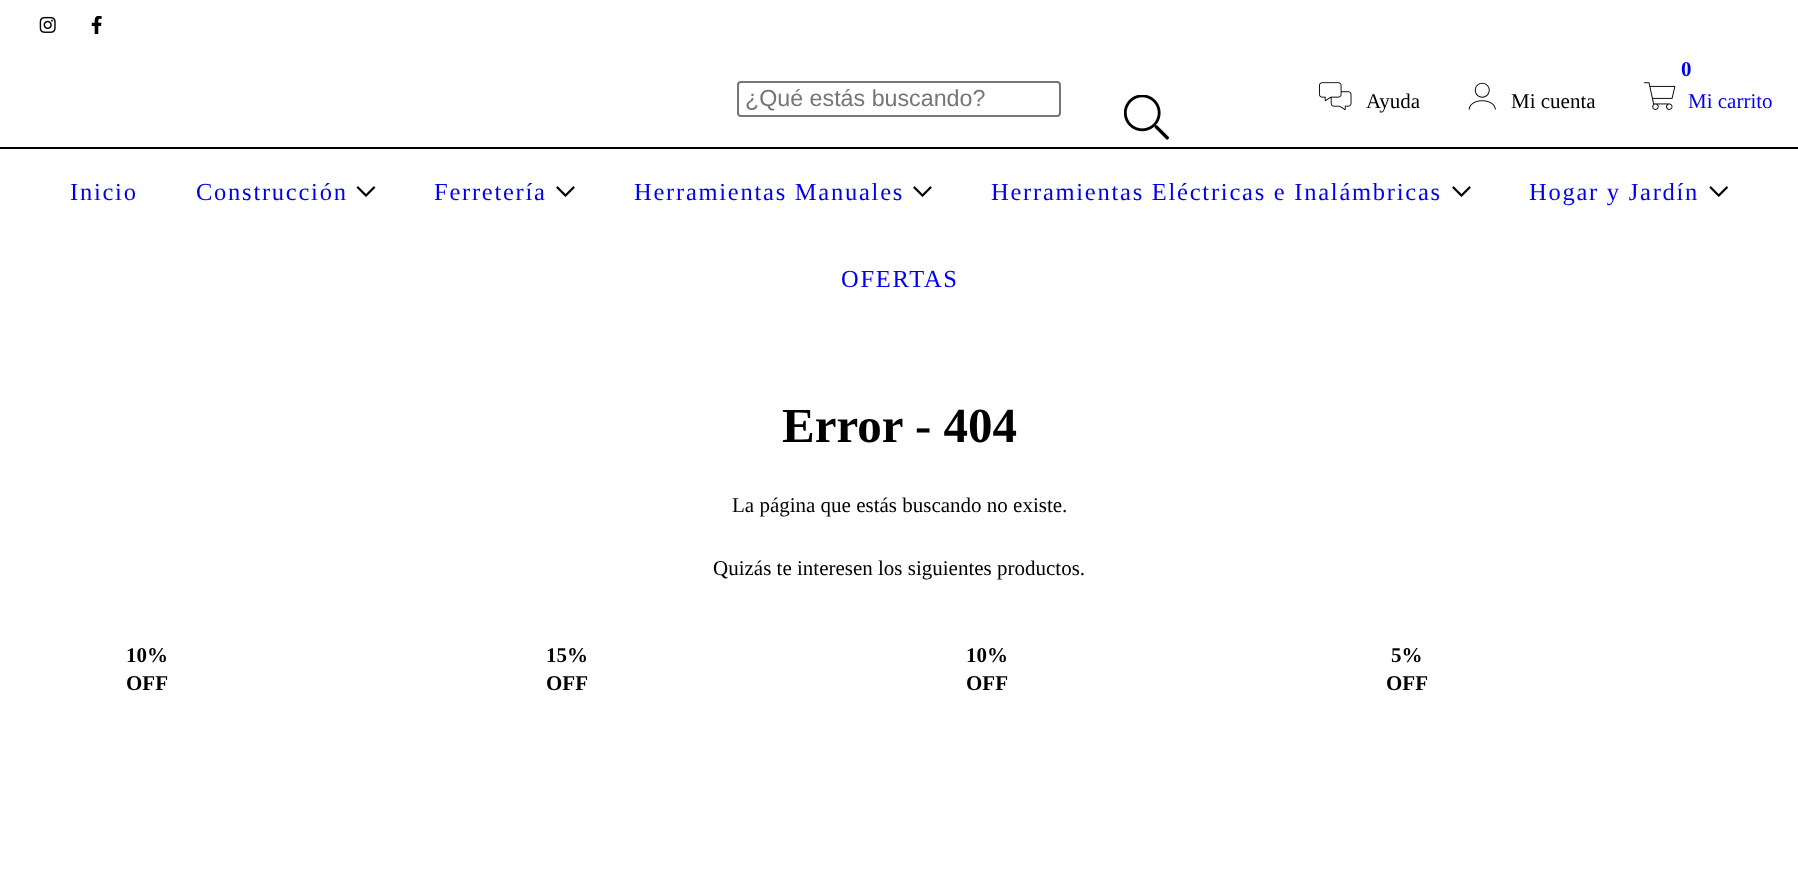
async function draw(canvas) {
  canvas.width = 1798
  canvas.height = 879
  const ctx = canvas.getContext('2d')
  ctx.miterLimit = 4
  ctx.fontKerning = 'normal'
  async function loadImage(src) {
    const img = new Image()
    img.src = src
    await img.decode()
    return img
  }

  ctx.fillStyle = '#fff'
  ctx.fillRect(0, 0, 1798, 879)
  ctx.drawImage(await loadImage('image0.png'), 39, 16, 17, 17)
  ctx.drawImage(await loadImage('image1.png'), 91, 16, 11, 18)
  ctx.beginPath()
  ctx.roundRect(738, 82, 322, 34, 3)
  ctx.strokeStyle = '#767676'
  ctx.lineWidth = 2
  ctx.stroke()
  ctx.font = '23.25px Liberation Sans'
  ctx.fillStyle = '#757575'
  ctx.fillText('¿Qué estás buscando?', 745, 106)
  ctx.drawImage(await loadImage('image2.png'), 1124, 95, 45, 45)
  ctx.drawImage(await loadImage('image3.png'), 1319, 82, 33, 28)
  ctx.font = '21px Liberation Serif'
  ctx.fillStyle = '#000'
  ctx.fillText('Ayuda', 1366, 108)
  ctx.drawImage(await loadImage('image4.png'), 1468, 82, 28, 28)
  ctx.fillText('Mi cuenta', 1511, 108)
  ctx.font = 'bold 21px Liberation Serif'
  ctx.fillStyle = '#00e'
  ctx.fillText('0', 1681, 76)
  ctx.drawImage(await loadImage('image5.png'), 1644, 82, 32, 28)
  ctx.font = '21px Liberation Serif'
  ctx.fillText('Mi carrito', 1688, 108)
  ctx.fillStyle = '#000'
  ctx.fillRect(0, 147, 1798, 2)
  ctx.letterSpacing = '1.75px'
  ctx.font = '24.5px Liberation Serif'
  ctx.fillStyle = '#00e'
  ctx.fillText('Inicio', 70, 200)
  ctx.fillText('Construcción', 196, 200)
  ctx.drawImage(await loadImage('image6.png'), 356, 186, 20, 11)
  ctx.fillText('Ferretería', 434, 200)
  ctx.drawImage(await loadImage('image7.png'), 556, 186, 19, 11)
  ctx.fillText('Herramientas Manuales', 634, 200)
  ctx.drawImage(await loadImage('image7.png'), 913, 186, 19, 11)
  ctx.fillText('Herramientas Eléctricas e Inalámbricas', 991, 200)
  ctx.drawImage(await loadImage('image7.png'), 1452, 186, 19, 11)
  ctx.fillText('Hogar y Jardín', 1529, 200)
  ctx.drawImage(await loadImage('image8.png'), 1709, 186, 19, 11)
  ctx.fillText('OFERTAS', 841, 287)
  ctx.letterSpacing = '0px'
  ctx.font = 'bold 49px Liberation Serif'
  ctx.fillStyle = '#000'
  ctx.fillText('Error - 404', 782, 442)
  ctx.font = '21px Liberation Serif'
  ctx.fillText('La página que estás buscando no existe.', 732, 512)
  ctx.fillText('Quizás te interesen los siguientes productos.', 713, 575)
  ctx.font = 'bold 21px Liberation Serif'
  ctx.fillText('10%', 126, 662)
  ctx.fillText('OFF', 126, 690)
  ctx.fillText('15%', 546, 662)
  ctx.fillText('OFF', 546, 690)
  ctx.fillText('10%', 966, 662)
  ctx.fillText('OFF', 966, 690)
  ctx.fillText('5%', 1391, 662)
  ctx.fillText('OFF', 1386, 690)
}

draw(document.querySelector('canvas'))
